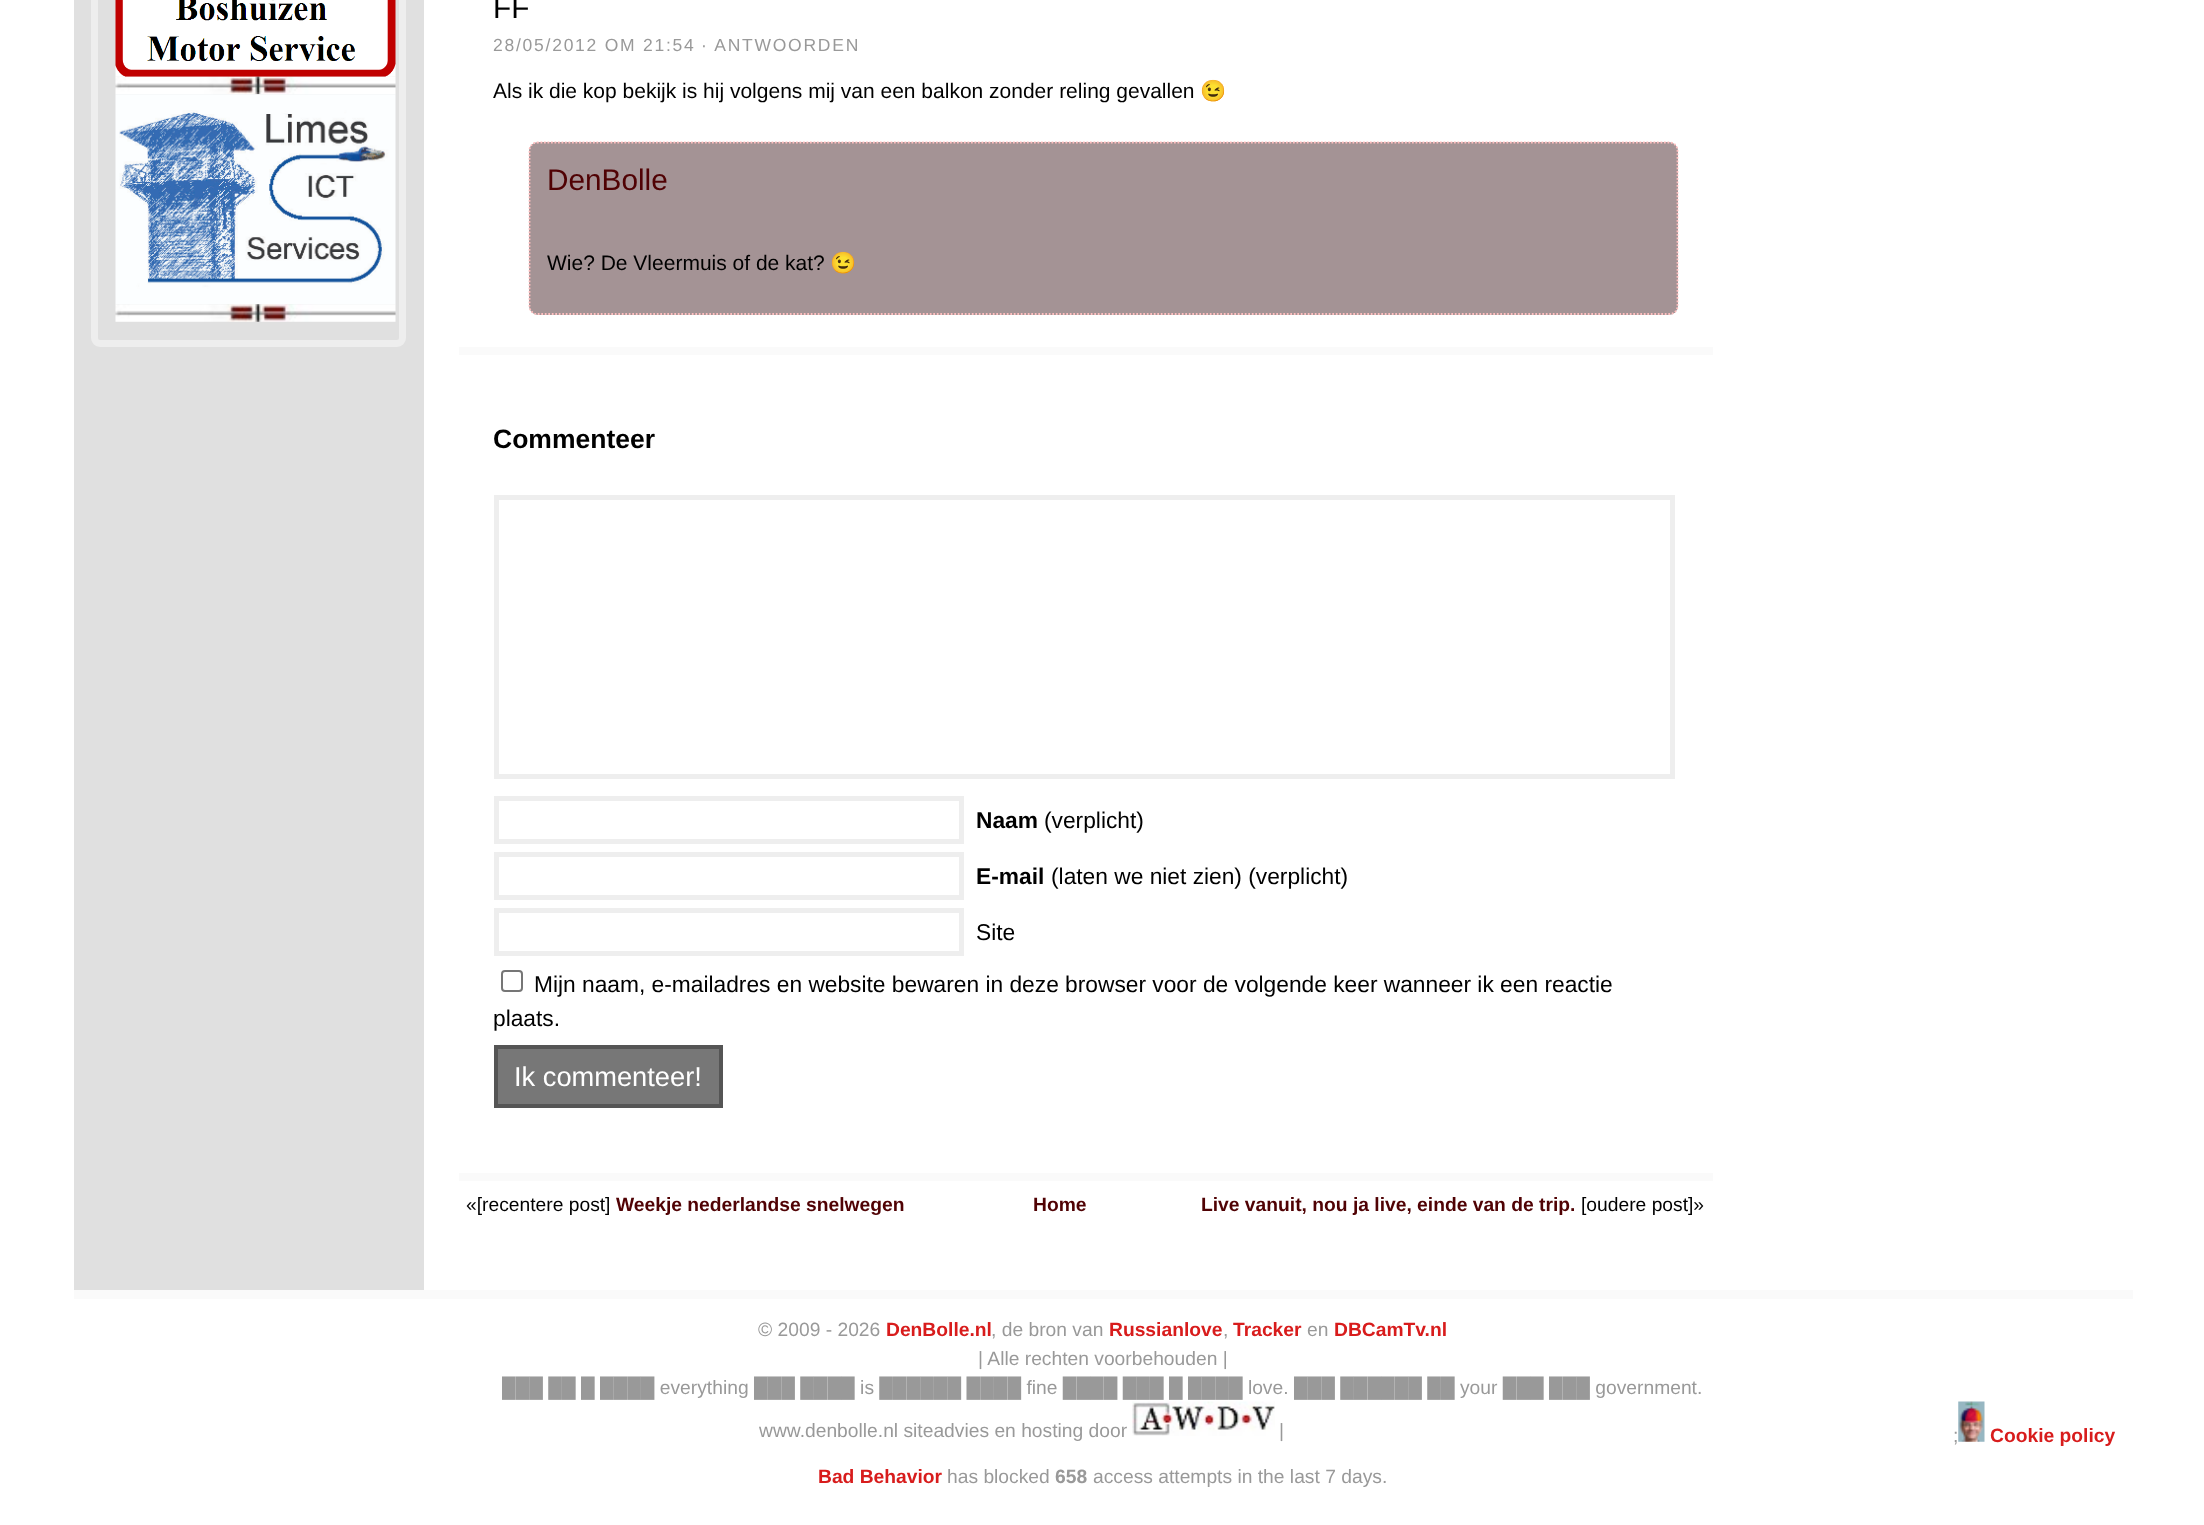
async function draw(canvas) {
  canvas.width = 2204
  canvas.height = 1525
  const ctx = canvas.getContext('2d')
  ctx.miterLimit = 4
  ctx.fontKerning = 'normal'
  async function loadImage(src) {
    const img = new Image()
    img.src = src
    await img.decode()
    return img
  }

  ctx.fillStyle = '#fff'
  ctx.fillRect(0, 0, 2204, 1525)
  ctx.fillStyle = '#e0e0e0'
  ctx.fillRect(74, 0, 350, 1290)
  ctx.beginPath()
  ctx.roundRect(94.5, -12.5, 308, 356, 5.5)
  ctx.strokeStyle = '#eee'
  ctx.lineWidth = 7
  ctx.stroke()
  ctx.drawImage(await loadImage('image0.png'), 115, 0, 281, 77)
  ctx.drawImage(await loadImage('image1.png'), 115, 76, 281, 19)
  ctx.drawImage(await loadImage('image2.png'), 115, 94, 281, 211)
  ctx.drawImage(await loadImage('image3.png'), 115, 304, 281, 18)
  ctx.fillStyle = '#fafafa'
  ctx.fillRect(459, 347, 1254, 8)
  ctx.font = '29.75px Liberation Sans'
  ctx.fillStyle = '#000'
  ctx.fillText('FF', 493, 18)
  ctx.letterSpacing = '1.75px'
  ctx.font = '17.5px Liberation Sans'
  ctx.fillStyle = '#999'
  ctx.fillText('28/05/2012 OM 21:54', 493, 51)
  ctx.fillText('· ANTWOORDEN', 701, 51)
  ctx.letterSpacing = '0px'
  ctx.font = '21px Liberation Sans'
  ctx.fillStyle = '#000'
  ctx.fillText('Als ik die kop bekijk is hij volgens mij van een balkon zonder reling gevallen', 493, 98)
  ctx.font = '21px Noto Color Emoji'
  ctx.fillText('😉', 1200, 98)
  ctx.fillStyle = '#a49395'
  ctx.beginPath()
  ctx.roundRect(529, 142, 1149, 173, 9)
  ctx.fill()
  ctx.beginPath()
  ctx.moveTo(537, 142.5)
  ctx.lineTo(1669.5, 142.5)
  ctx.bezierCurveTo(1674, 142.5, 1677.5, 146, 1677.5, 150.5)
  ctx.lineTo(1677.5, 306)
  ctx.bezierCurveTo(1677.5, 310.5, 1674, 314, 1669.5, 314)
  ctx.lineTo(537, 314)
  ctx.bezierCurveTo(533, 314, 529.5, 310.5, 529.5, 306)
  ctx.lineTo(529.5, 150.5)
  ctx.bezierCurveTo(529.5, 146, 533, 142.5, 537, 142.5)
  ctx.closePath()
  ctx.strokeStyle = '#ffbfbf'
  ctx.lineWidth = 1.8
  ctx.setLineDash([1.75, 1.75])
  ctx.stroke()
  ctx.font = '29.75px Liberation Sans'
  ctx.fillStyle = '#500204'
  ctx.fillText('DenBolle', 547, 190)
  ctx.font = '21px Liberation Sans'
  ctx.fillStyle = '#000'
  ctx.fillText('Wie? De Vleermuis of de kat?', 547, 270)
  ctx.font = '21px Noto Color Emoji'
  ctx.fillText('😉', 830, 270)
  ctx.font = 'bold 26.5px Liberation Sans'
  ctx.fillText('Commenteer', 493, 448)
  ctx.strokeStyle = '#eee'
  ctx.lineWidth = 5
  ctx.setLineDash([])
  ctx.strokeRect(496.5, 497.5, 1176, 279)
  ctx.strokeRect(496.5, 798.5, 465, 43)
  ctx.font = 'bold 22.75px Liberation Sans'
  ctx.fillText('Naam', 976, 828)
  ctx.font = '22.75px Liberation Sans'
  ctx.fillText('(verplicht)', 1044, 828)
  ctx.strokeRect(496.5, 854.5, 465, 43)
  ctx.font = 'bold 22.75px Liberation Sans'
  ctx.fillText('E-mail', 976, 884)
  ctx.font = '22.75px Liberation Sans'
  ctx.fillText('(laten we niet zien) (verplicht)', 1051, 884)
  ctx.strokeRect(496.5, 910.5, 465, 43)
  ctx.fillText('Site', 976, 940)
  ctx.beginPath()
  ctx.roundRect(502, 971, 20, 20, 3)
  ctx.strokeStyle = '#767676'
  ctx.lineWidth = 2
  ctx.stroke()
  ctx.fillText('Mijn naam, e-mailadres en website bewaren in deze browser voor de volgende keer wanneer ik een reactie', 534, 992)
  ctx.fillText('plaats.', 493, 1026)
  ctx.fillStyle = '#777'
  ctx.beginPath()
  ctx.rect(496, 1047, 225, 59)
  ctx.fill()
  ctx.strokeStyle = '#555'
  ctx.lineWidth = 4
  ctx.stroke()
  ctx.font = '27.25px Liberation Sans'
  ctx.fillStyle = '#fff'
  ctx.fillText('Ik commenteer!', 514, 1086)
  ctx.fillStyle = '#fafafa'
  ctx.fillRect(459, 1173, 1254, 8)
  ctx.font = '19.25px Liberation Sans'
  ctx.fillStyle = '#000'
  ctx.fillText('«[recentere post]', 466, 1211)
  ctx.font = 'bold 19.25px Liberation Sans'
  ctx.fillStyle = '#500204'
  ctx.fillText('Weekje nederlandse snelwegen', 616, 1211)
  ctx.fillText('Home', 1033, 1211)
  ctx.fillText('Live vanuit, nou ja live, einde van de trip.', 1201, 1211)
  ctx.font = '19.25px Liberation Sans'
  ctx.fillStyle = '#000'
  ctx.fillText('[oudere post]»', 1581, 1211)
  ctx.fillStyle = '#fafafa'
  ctx.fillRect(74, 1290, 2059, 9)
  ctx.fillStyle = '#999'
  ctx.fillText('© 2009 - 2026', 758, 1336)
  ctx.font = 'bold 19.25px Liberation Sans'
  ctx.fillStyle = '#d81c1c'
  ctx.fillText('DenBolle.nl', 886, 1336)
  ctx.font = '19.25px Liberation Sans'
  ctx.fillStyle = '#999'
  ctx.fillText(', de bron van', 991, 1336)
  ctx.font = 'bold 19.25px Liberation Sans'
  ctx.fillStyle = '#d81c1c'
  ctx.fillText('Russianlove', 1109, 1336)
  ctx.font = '19.25px Liberation Sans'
  ctx.fillStyle = '#999'
  ctx.fillText(',', 1223, 1336)
  ctx.font = 'bold 19.25px Liberation Sans'
  ctx.fillStyle = '#d81c1c'
  ctx.fillText('Tracker', 1233, 1336)
  ctx.font = '19.25px Liberation Sans'
  ctx.fillStyle = '#999'
  ctx.fillText('en', 1307, 1336)
  ctx.font = 'bold 19.25px Liberation Sans'
  ctx.fillStyle = '#d81c1c'
  ctx.fillText('DBCamTv.nl', 1334, 1336)
  ctx.font = '19.25px Liberation Sans'
  ctx.fillStyle = '#999'
  ctx.fillText('| Alle rechten voorbehouden |', 978, 1365)
  ctx.fillText('███ ██ █ ████ everything ███ ████ is ██████ ████ fine ████ ███ █ ████ love. ███ ██████ ██ your ███ ███ government.', 502, 1394)
  ctx.fillText('www.denbolle.nl siteadvies en hosting door', 759, 1437)
  ctx.drawImage(await loadImage('image4.png'), 1132, 1401, 143, 35)
  ctx.fillText('|', 1279, 1437)
  ctx.fillText(';', 1953, 1442)
  ctx.drawImage(await loadImage('image5.png'), 1958, 1401, 27, 41)
  ctx.font = 'bold 19.25px Liberation Sans'
  ctx.fillStyle = '#d81c1c'
  ctx.fillText('Cookie policy', 1990, 1442)
  ctx.fillText('Bad Behavior', 818, 1483)
  ctx.font = '19.25px Liberation Sans'
  ctx.fillStyle = '#999'
  ctx.fillText('has blocked', 947, 1483)
  ctx.font = 'bold 19.25px Liberation Sans'
  ctx.fillText('658', 1055, 1483)
  ctx.font = '19.25px Liberation Sans'
  ctx.fillText('access attempts in the last 7 days.', 1093, 1483)
}

draw(document.querySelector('canvas'))
